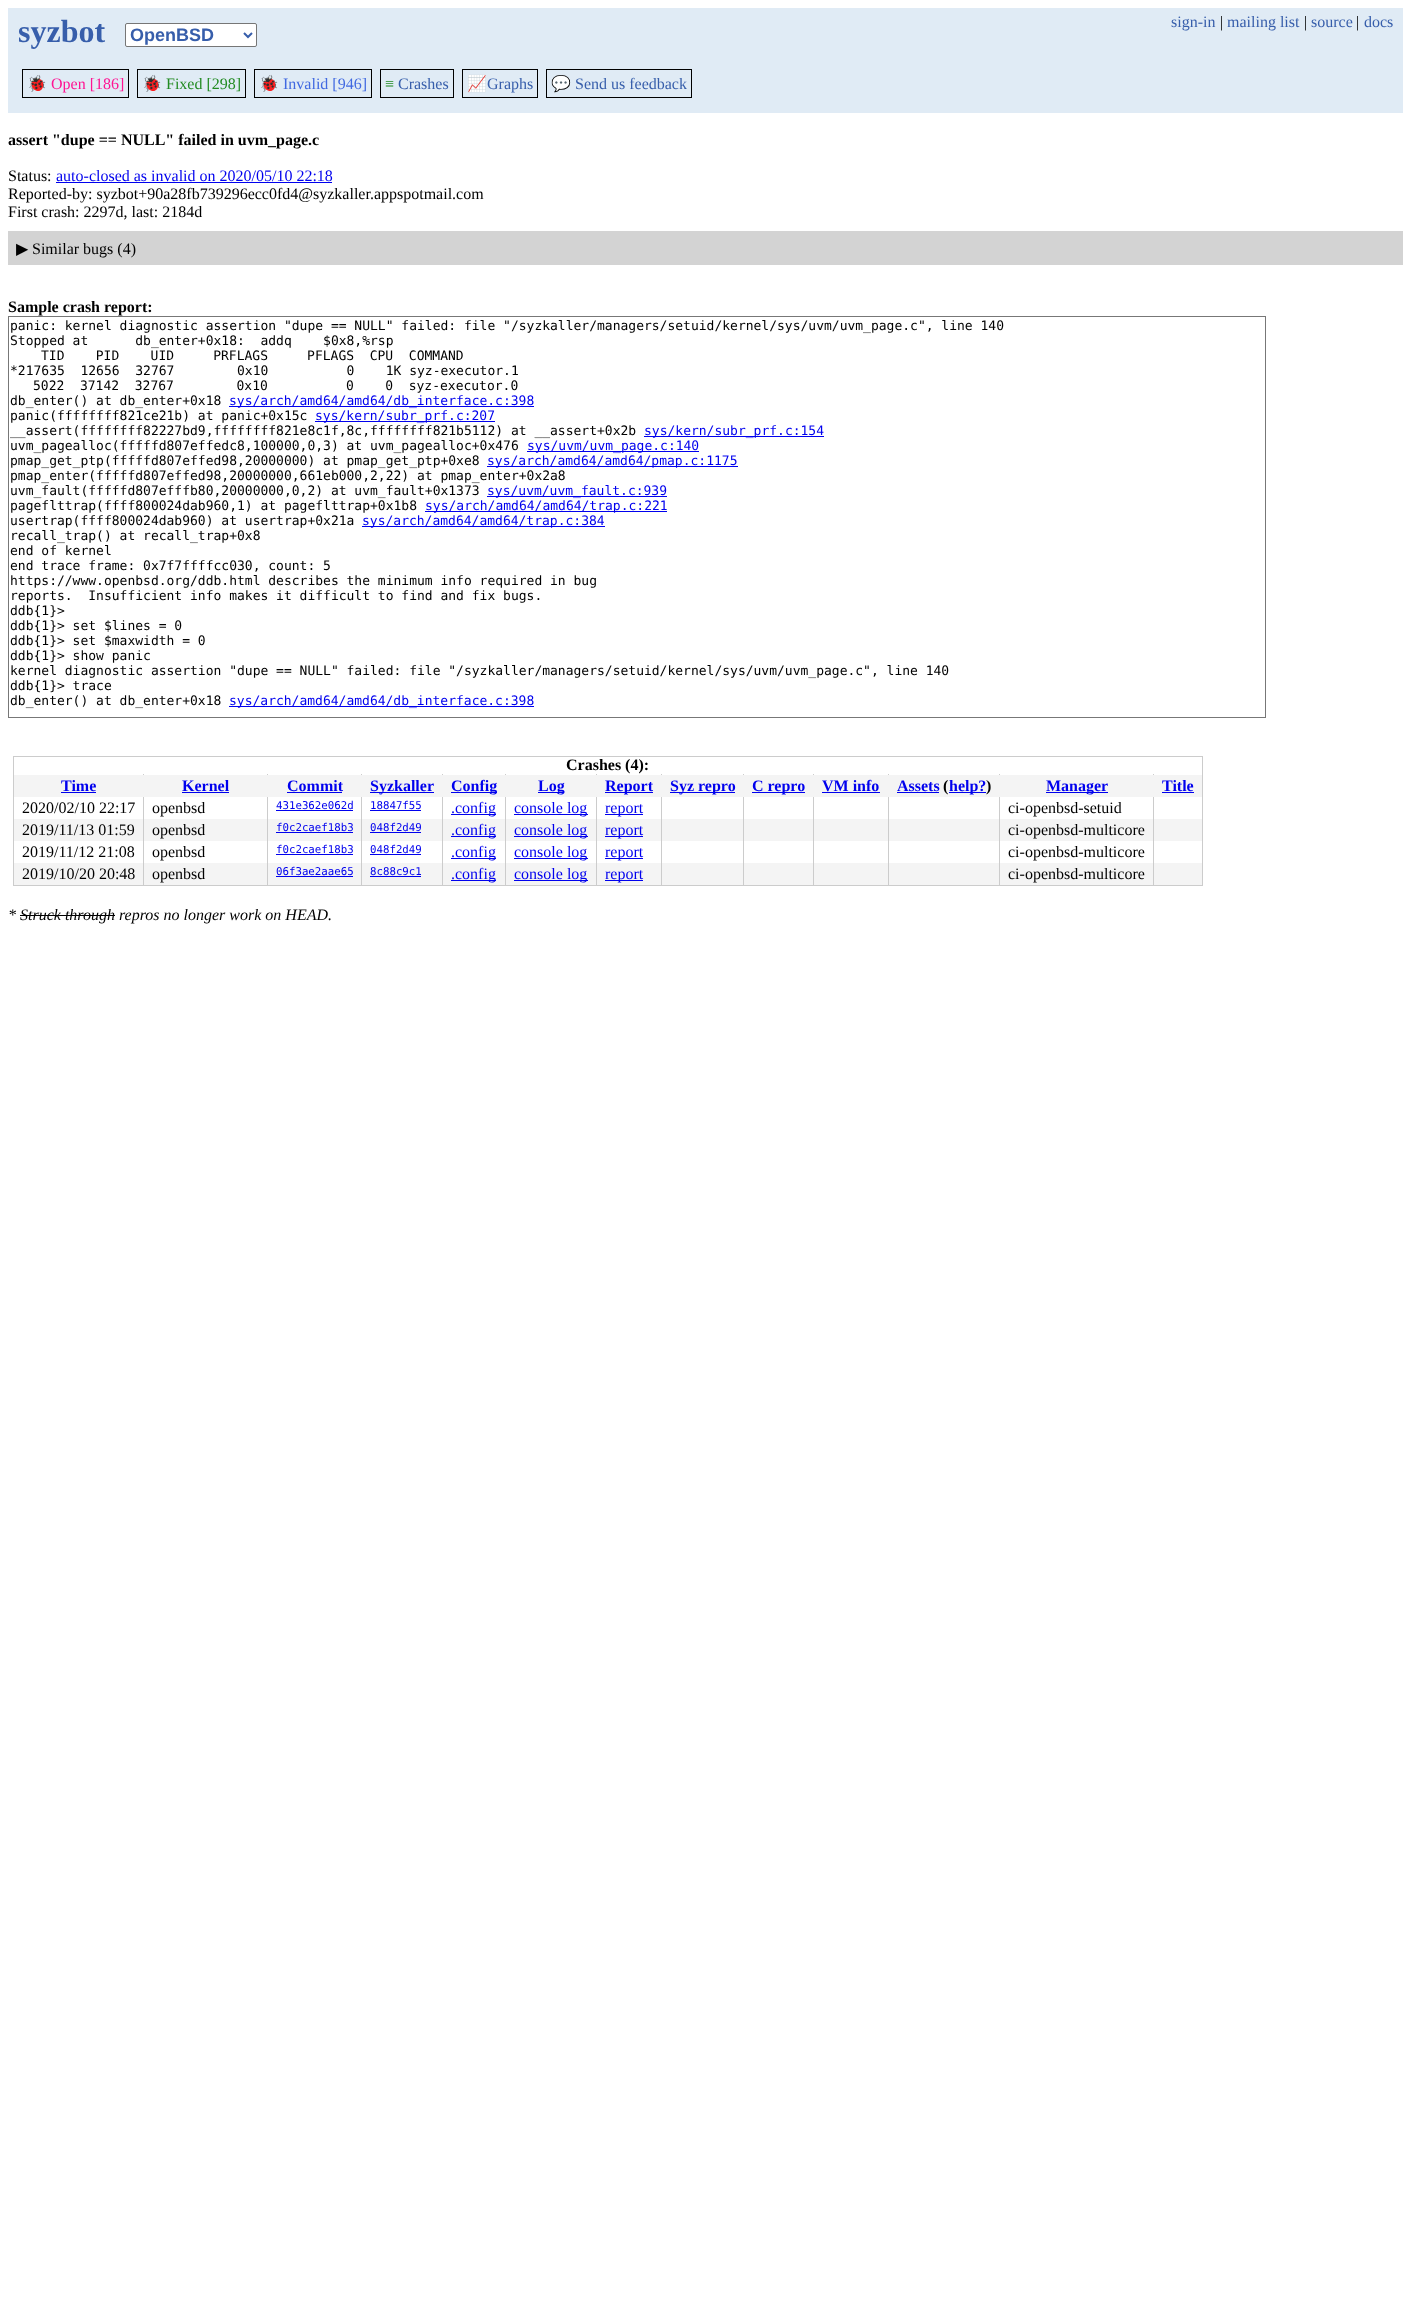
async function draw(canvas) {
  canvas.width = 1411
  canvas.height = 2306
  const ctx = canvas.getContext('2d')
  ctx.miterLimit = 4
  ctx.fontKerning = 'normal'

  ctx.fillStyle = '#fff'
  ctx.fillRect(0, 0, 1411, 2306)
  ctx.fillStyle = '#e0ebf5'
  ctx.fillRect(8, 8, 1395, 105)
  ctx.font = 'bold 32px Liberation Serif'
  ctx.fillStyle = '#375eab'
  ctx.fillText('syzbot', 18, 42)
  ctx.fillStyle = '#fff'
  ctx.beginPath()
  ctx.roundRect(125.5, 23.5, 131, 23, 1.5)
  ctx.fill()
  ctx.strokeStyle = '#767676'
  ctx.stroke()
  ctx.beginPath()
  ctx.moveTo(244, 33)
  ctx.lineTo(248, 37)
  ctx.lineTo(252, 33)
  ctx.strokeStyle = '#375eab'
  ctx.lineWidth = 2
  ctx.stroke()
  ctx.font = 'bold 18px Liberation Sans'
  ctx.fillStyle = '#375eab'
  ctx.fillText('OpenBSD', 130, 41)
  ctx.font = '16px Liberation Serif'
  ctx.fillText('sign-in', 1171, 27)
  ctx.fillStyle = '#000'
  ctx.fillText('|', 1220, 27)
  ctx.fillStyle = '#375eab'
  ctx.fillText('mailing list', 1227, 27)
  ctx.fillStyle = '#000'
  ctx.fillText('|', 1304, 27)
  ctx.fillStyle = '#375eab'
  ctx.fillText('source', 1311, 27)
  ctx.fillStyle = '#000'
  ctx.fillText('|', 1356, 27)
  ctx.fillStyle = '#375eab'
  ctx.fillText('docs', 1364, 27)
  ctx.strokeStyle = '#000'
  ctx.lineWidth = 1
  ctx.strokeRect(22.5, 69.5, 106, 28)
  ctx.font = '16px Noto Color Emoji'
  ctx.fillStyle = '#ff1493'
  ctx.fillText('🐞', 27, 89)
  ctx.font = '16px Liberation Serif'
  ctx.fillText('Open [186]', 51, 89)
  ctx.strokeRect(137.5, 69.5, 108, 28)
  ctx.font = '16px Noto Color Emoji'
  ctx.fillStyle = '#228b22'
  ctx.fillText('🐞', 142, 89)
  ctx.font = '16px Liberation Serif'
  ctx.fillText('Fixed [298]', 166, 89)
  ctx.strokeRect(254.5, 69.5, 117, 28)
  ctx.font = '16px Noto Color Emoji'
  ctx.fillStyle = '#4169e1'
  ctx.fillText('🐞', 259, 89)
  ctx.font = '16px Liberation Serif'
  ctx.fillText('Invalid [946]', 283, 89)
  ctx.strokeRect(380.5, 69.5, 73, 28)
  ctx.fillStyle = '#228b22'
  ctx.fillText('≡', 385, 89)
  ctx.fillStyle = '#375eab'
  ctx.fillText('Crashes', 398, 89)
  ctx.strokeRect(462.5, 69.5, 75, 28)
  ctx.font = '16px Noto Color Emoji'
  ctx.fillStyle = '#ff8c00'
  ctx.fillText('📈', 467, 89)
  ctx.font = '16px Liberation Serif'
  ctx.fillStyle = '#375eab'
  ctx.fillText('Graphs', 487, 89)
  ctx.strokeRect(546.5, 69.5, 145, 28)
  ctx.font = '16px Noto Color Emoji'
  ctx.fillStyle = '#228b22'
  ctx.fillText('💬', 551, 89)
  ctx.font = '16px Liberation Serif'
  ctx.fillStyle = '#375eab'
  ctx.fillText('Send us feedback', 575, 89)
  ctx.font = 'bold 16px Liberation Serif'
  ctx.fillStyle = '#000'
  ctx.fillText('assert "dupe == NULL" failed in uvm_page.c', 8, 145)
  ctx.font = '16px Liberation Serif'
  ctx.fillText('Status:', 8, 181)
  ctx.fillStyle = '#00e'
  ctx.fillText('auto-closed as invalid on 2020/05/10 22:18', 56, 181)
  ctx.fillRect(56, 182, 276, 1)
  ctx.fillStyle = '#000'
  ctx.fillText('Reported-by: syzbot+90a28fb739296ecc0fd4@syzkaller.appspotmail.com', 8, 199)
  ctx.fillText('First crash: 2297d, last: 2184d', 8, 217)
  ctx.strokeStyle = '#d3d3d3'
  ctx.strokeRect(8.5, 231.5, 1394, 33)
  ctx.fillStyle = '#d3d3d3'
  ctx.fillRect(9, 232, 1393, 32)
  ctx.font = '16px DejaVu Sans'
  ctx.fillStyle = '#000'
  ctx.fillText('▶', 16, 254)
  ctx.font = '16px Liberation Serif'
  ctx.fillText('Similar bugs (4)', 32, 254)
  ctx.font = 'bold 16px Liberation Serif'
  ctx.fillText('Sample crash report:', 8, 312)
  ctx.strokeStyle = '#777'
  ctx.strokeRect(8.5, 316.5, 1257, 401)
  ctx.font = '13px DejaVu Sans Mono'
  ctx.fillText('panic: kernel diagnostic assertion "dupe == NULL" failed: file "/syzkaller/managers/setuid/kernel/sys/uvm/uvm_page.c", line 140', 10, 330)
  ctx.fillText('Stopped at      db_enter+0x18:  addq    $0x8,%rsp', 10, 345)
  ctx.fillText('TID    PID    UID     PRFLAGS     PFLAGS  CPU  COMMAND', 41, 360)
  ctx.fillText('*217635  12656  32767        0x10          0    1K syz-executor.1', 10, 375)
  ctx.fillText('5022  37142  32767        0x10          0    0  syz-executor.0', 33, 390)
  ctx.fillText('db_enter() at db_enter+0x18', 10, 405)
  ctx.fillStyle = '#00e'
  ctx.fillRect(229, 406, 305, 1)
  ctx.fillText('sys/arch/amd64/amd64/db_interface.c:398', 229, 405)
  ctx.fillStyle = '#000'
  ctx.fillText('panic(ffffffff821ce21b) at panic+0x15c', 10, 420)
  ctx.fillStyle = '#00e'
  ctx.fillRect(315, 421, 180, 1)
  ctx.fillText('sys/kern/subr_prf.c:207', 315, 420)
  ctx.fillStyle = '#000'
  ctx.fillText('__assert(ffffffff82227bd9,ffffffff821e8c1f,8c,ffffffff821b5112) at __assert+0x2b', 10, 435)
  ctx.fillStyle = '#00e'
  ctx.fillRect(644, 436, 180, 1)
  ctx.fillText('sys/kern/subr_prf.c:154', 644, 435)
  ctx.fillStyle = '#000'
  ctx.fillText('uvm_pagealloc(fffffd807effedc8,100000,0,3) at uvm_pagealloc+0x476', 10, 450)
  ctx.fillStyle = '#00e'
  ctx.fillRect(527, 451, 172, 1)
  ctx.fillText('sys/uvm/uvm_page.c:140', 527, 450)
  ctx.fillStyle = '#000'
  ctx.fillText('pmap_get_ptp(fffffd807effed98,20000000) at pmap_get_ptp+0xe8', 10, 465)
  ctx.fillStyle = '#00e'
  ctx.fillRect(487, 466, 251, 1)
  ctx.fillText('sys/arch/amd64/amd64/pmap.c:1175', 487, 465)
  ctx.fillStyle = '#000'
  ctx.fillText('pmap_enter(fffffd807effed98,20000000,661eb000,2,22) at pmap_enter+0x2a8', 10, 480)
  ctx.fillText('uvm_fault(fffffd807efffb80,20000000,0,2) at uvm_fault+0x1373', 10, 495)
  ctx.fillStyle = '#00e'
  ctx.fillRect(487, 496, 180, 1)
  ctx.fillText('sys/uvm/uvm_fault.c:939', 487, 495)
  ctx.fillStyle = '#000'
  ctx.fillText('pageflttrap(ffff800024dab960,1) at pageflttrap+0x1b8', 10, 510)
  ctx.fillStyle = '#00e'
  ctx.fillRect(425, 511, 242, 1)
  ctx.fillText('sys/arch/amd64/amd64/trap.c:221', 425, 510)
  ctx.fillStyle = '#000'
  ctx.fillText('usertrap(ffff800024dab960) at usertrap+0x21a', 10, 525)
  ctx.fillStyle = '#00e'
  ctx.fillRect(362, 526, 243, 1)
  ctx.fillText('sys/arch/amd64/amd64/trap.c:384', 362, 525)
  ctx.fillStyle = '#000'
  ctx.fillText('recall_trap() at recall_trap+0x8', 10, 540)
  ctx.fillText('end of kernel', 10, 555)
  ctx.fillText('end trace frame: 0x7f7ffffcc030, count: 5', 10, 570)
  ctx.fillText('https://www.openbsd.org/ddb.html describes the minimum info required in bug', 10, 585)
  ctx.fillText('reports.  Insufficient info makes it difficult to find and fix bugs.', 10, 600)
  ctx.fillText('ddb{1}>', 10, 615)
  ctx.fillText('ddb{1}> set $lines = 0', 10, 630)
  ctx.fillText('ddb{1}> set $maxwidth = 0', 10, 645)
  ctx.fillText('ddb{1}> show panic', 10, 660)
  ctx.fillText('kernel diagnostic assertion "dupe == NULL" failed: file "/syzkaller/managers/setuid/kernel/sys/uvm/uvm_page.c", line 140', 10, 675)
  ctx.fillText('ddb{1}> trace', 10, 690)
  ctx.fillText('db_enter() at db_enter+0x18', 10, 705)
  ctx.fillStyle = '#00e'
  ctx.fillRect(229, 706, 305, 1)
  ctx.fillText('sys/arch/amd64/amd64/db_interface.c:398', 229, 705)
  ctx.fillStyle = '#ccc'
  ctx.fillRect(13, 756, 1190, 1)
  ctx.fillRect(1202, 756, 1, 130)
  ctx.fillRect(13, 885, 1190, 1)
  ctx.fillRect(13, 756, 1, 130)
  ctx.font = 'bold 16px Liberation Serif'
  ctx.fillStyle = '#000'
  ctx.fillText('Crashes (4):', 566, 770)
  ctx.fillStyle = '#f4f4f4'
  ctx.fillRect(14, 819, 1188, 22)
  ctx.fillRect(14, 863, 1188, 22)
  ctx.fillStyle = '#ccc'
  ctx.fillRect(143, 774, 1, 111)
  ctx.fillRect(267, 774, 1, 111)
  ctx.fillRect(361, 774, 1, 111)
  ctx.fillRect(442, 774, 1, 111)
  ctx.fillRect(505, 774, 1, 111)
  ctx.fillRect(596, 774, 1, 111)
  ctx.fillRect(661, 774, 1, 111)
  ctx.fillRect(743, 774, 1, 111)
  ctx.fillRect(813, 774, 1, 111)
  ctx.fillRect(888, 774, 1, 111)
  ctx.fillRect(999, 774, 1, 111)
  ctx.fillRect(1153, 774, 1, 111)
  ctx.fillStyle = '#f4f4f4'
  ctx.fillRect(14, 775, 1188, 22)
  ctx.fillStyle = '#00e'
  ctx.fillText('Time', 61, 791)
  ctx.fillRect(61, 792, 35, 1)
  ctx.fillText('Kernel', 182, 791)
  ctx.fillRect(182, 792, 47, 1)
  ctx.fillText('Commit', 287, 791)
  ctx.fillRect(287, 792, 55, 1)
  ctx.fillRect(370, 792, 64, 1)
  ctx.fillText('Syzkaller', 370, 791)
  ctx.fillRect(451, 792, 46, 1)
  ctx.fillText('Config', 451, 791)
  ctx.fillRect(538, 792, 26, 1)
  ctx.fillText('Log', 538, 791)
  ctx.fillRect(605, 792, 48, 1)
  ctx.fillText('Report', 605, 791)
  ctx.fillRect(670, 792, 65, 1)
  ctx.fillText('Syz repro', 670, 791)
  ctx.fillRect(752, 792, 53, 1)
  ctx.fillText('C repro', 752, 791)
  ctx.fillText('VM info', 822, 791)
  ctx.fillRect(822, 792, 58, 1)
  ctx.fillText('Assets', 897, 791)
  ctx.fillRect(897, 792, 42, 1)
  ctx.fillStyle = '#000'
  ctx.fillText('(', 943, 791)
  ctx.fillStyle = '#00e'
  ctx.fillRect(949, 792, 37, 1)
  ctx.fillText('help?', 949, 791)
  ctx.fillStyle = '#000'
  ctx.fillText(')', 986, 791)
  ctx.fillStyle = '#00e'
  ctx.fillRect(1046, 792, 62, 1)
  ctx.fillText('Manager', 1046, 791)
  ctx.fillText('Title', 1162, 791)
  ctx.fillRect(1162, 792, 32, 1)
  ctx.font = '16px Liberation Serif'
  ctx.fillStyle = '#000'
  ctx.fillText('2020/02/10 22:17', 22, 813)
  ctx.fillText('openbsd', 152, 813)
  ctx.font = '10.75px DejaVu Sans Mono'
  ctx.fillStyle = '#00e'
  ctx.fillText('431e362e062d', 276, 809)
  ctx.fillRect(276, 810, 77, 1)
  ctx.fillText('18847f55', 370, 809)
  ctx.fillRect(370, 810, 51, 1)
  ctx.fillRect(451, 814, 45, 1)
  ctx.font = '16px Liberation Serif'
  ctx.fillText('.config', 451, 813)
  ctx.fillRect(514, 814, 74, 1)
  ctx.fillText('console log', 514, 813)
  ctx.fillRect(605, 814, 38, 1)
  ctx.fillText('report', 605, 813)
  ctx.fillStyle = '#000'
  ctx.fillText('ci-openbsd-setuid', 1008, 813)
  ctx.fillText('2019/11/13 01:59', 22, 835)
  ctx.fillText('openbsd', 152, 835)
  ctx.font = '10.75px DejaVu Sans Mono'
  ctx.fillStyle = '#00e'
  ctx.fillText('f0c2caef18b3', 276, 831)
  ctx.fillRect(276, 832, 77, 1)
  ctx.fillText('048f2d49', 370, 831)
  ctx.fillRect(370, 832, 51, 1)
  ctx.fillRect(451, 836, 45, 1)
  ctx.font = '16px Liberation Serif'
  ctx.fillText('.config', 451, 835)
  ctx.fillRect(514, 836, 74, 1)
  ctx.fillText('console log', 514, 835)
  ctx.fillRect(605, 836, 38, 1)
  ctx.fillText('report', 605, 835)
  ctx.fillStyle = '#000'
  ctx.fillText('ci-openbsd-multicore', 1008, 835)
  ctx.fillText('2019/11/12 21:08', 22, 857)
  ctx.fillText('openbsd', 152, 857)
  ctx.font = '10.75px DejaVu Sans Mono'
  ctx.fillStyle = '#00e'
  ctx.fillText('f0c2caef18b3', 276, 853)
  ctx.fillRect(276, 854, 77, 1)
  ctx.fillText('048f2d49', 370, 853)
  ctx.fillRect(370, 854, 51, 1)
  ctx.fillRect(451, 858, 45, 1)
  ctx.font = '16px Liberation Serif'
  ctx.fillText('.config', 451, 857)
  ctx.fillRect(514, 858, 74, 1)
  ctx.fillText('console log', 514, 857)
  ctx.fillRect(605, 858, 38, 1)
  ctx.fillText('report', 605, 857)
  ctx.fillStyle = '#000'
  ctx.fillText('ci-openbsd-multicore', 1008, 857)
  ctx.fillText('2019/10/20 20:48', 22, 879)
  ctx.fillText('openbsd', 152, 879)
  ctx.font = '10.75px DejaVu Sans Mono'
  ctx.fillStyle = '#00e'
  ctx.fillText('06f3ae2aae65', 276, 875)
  ctx.fillRect(276, 876, 77, 1)
  ctx.fillText('8c88c9c1', 370, 875)
  ctx.fillRect(370, 876, 51, 1)
  ctx.fillRect(451, 880, 45, 1)
  ctx.font = '16px Liberation Serif'
  ctx.fillText('.config', 451, 879)
  ctx.fillRect(514, 880, 74, 1)
  ctx.fillText('console log', 514, 879)
  ctx.fillRect(605, 880, 38, 1)
  ctx.fillText('report', 605, 879)
  ctx.fillStyle = '#000'
  ctx.fillText('ci-openbsd-multicore', 1008, 879)
  ctx.font = 'italic 16px Liberation Serif'
  ctx.fillText('* Struck through repros no longer work on HEAD.', 8, 920)
  ctx.fillRect(20, 915, 95, 1)
}

draw(document.querySelector('canvas'))
